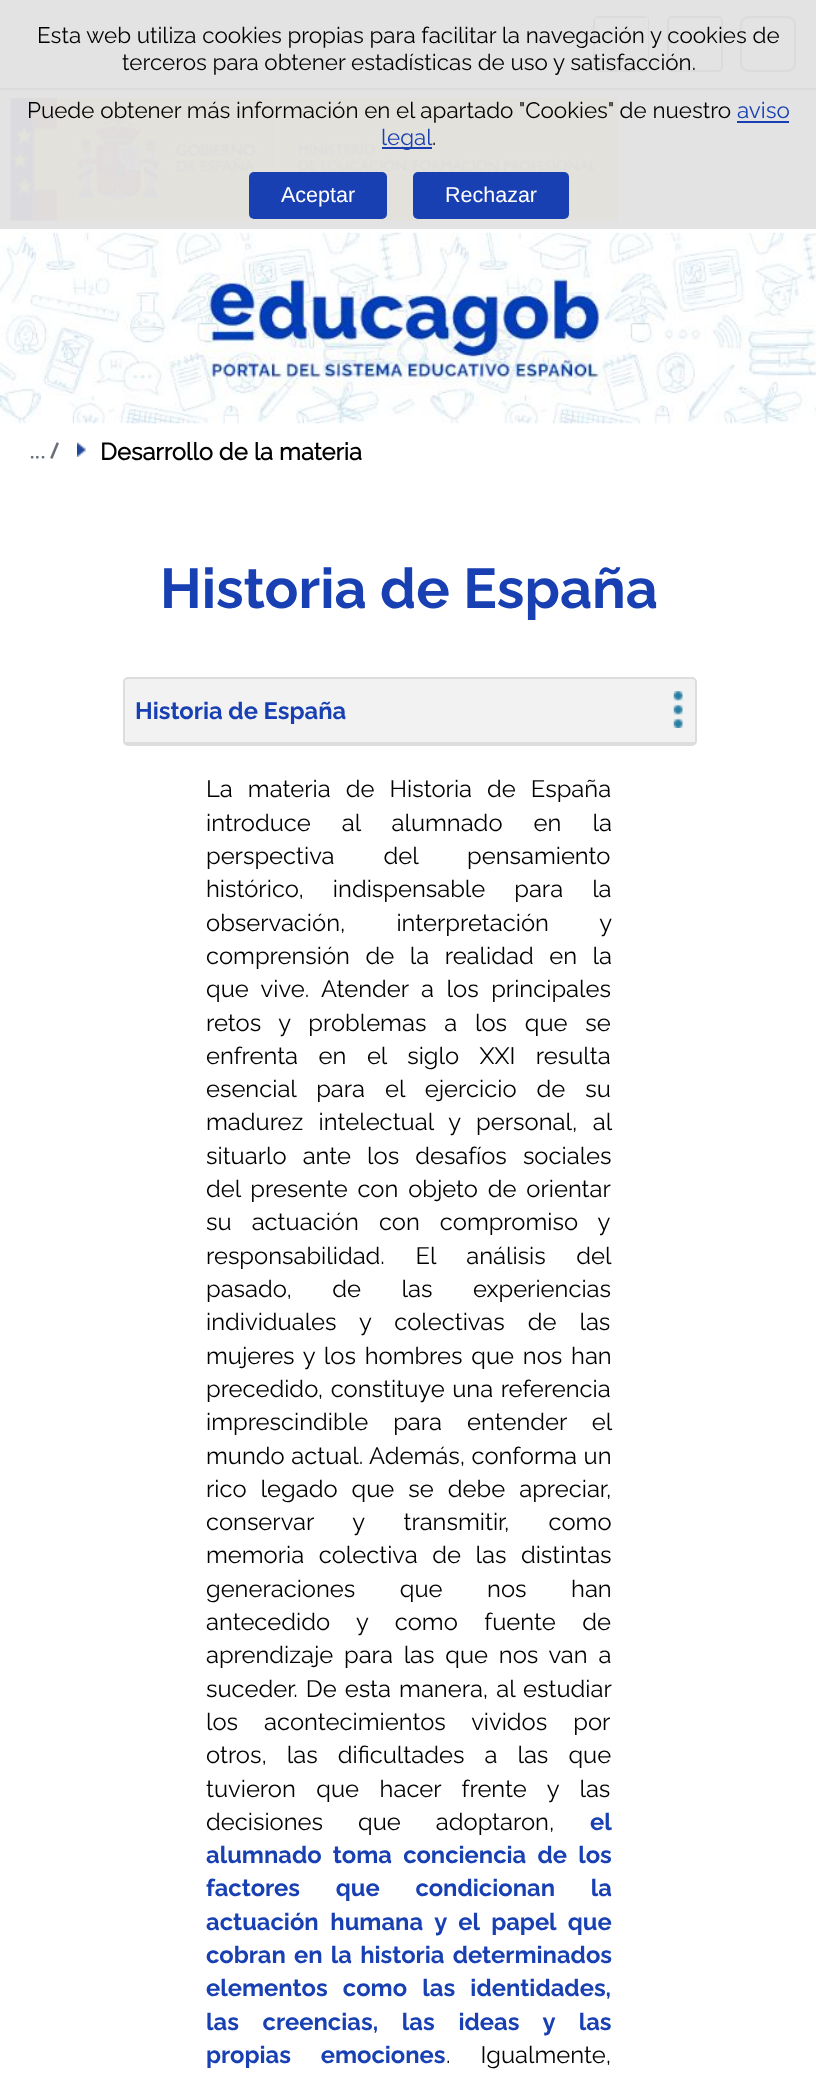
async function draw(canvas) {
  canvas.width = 816
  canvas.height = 2089
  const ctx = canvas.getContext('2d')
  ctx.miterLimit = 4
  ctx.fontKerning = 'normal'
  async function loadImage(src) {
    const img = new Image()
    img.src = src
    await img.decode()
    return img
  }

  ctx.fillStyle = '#fff'
  ctx.fillRect(0, 0, 816, 2089)
  ctx.fillStyle = '#e3e3e3'
  ctx.fillRect(0, 0, 816, 229)
  ctx.beginPath()
  ctx.roundRect(594, 17, 54, 54, 4)
  ctx.strokeStyle = '#dbdbdb'
  ctx.lineWidth = 2
  ctx.stroke()
  ctx.fillRect(595, 18, 53, 52)
  ctx.beginPath()
  ctx.roundRect(668, 17, 54, 54, 4)
  ctx.stroke()
  ctx.beginPath()
  ctx.roundRect(741, 17, 54, 54, 8)
  ctx.stroke()
  ctx.font = '22.4px Raleway'
  ctx.fillStyle = '#000'
  ctx.fillText('Esta web utiliza cookies propias para facilitar la navegación y cookies de', 37, 43)
  ctx.fillText('terceros para obtener estadísticas de uso y satisfacción.', 122, 70)
  ctx.drawImage(await loadImage('image0.png'), 10, 98, 608, 123)
  ctx.fillText('Puede obtener más información en el apartado "Cookies" de nuestro', 27, 118)
  ctx.fillStyle = '#1840b3'
  ctx.fillText('aviso', 737, 118)
  ctx.fillRect(737, 121, 52, 2)
  ctx.fillRect(382, 147, 50, 2)
  ctx.fillText('legal', 381, 145)
  ctx.fillStyle = '#000'
  ctx.fillText('.', 432, 145)
  ctx.fillStyle = '#1840b3'
  ctx.beginPath()
  ctx.roundRect(249, 172, 138, 47, 5)
  ctx.fill()
  ctx.font = '21.5px Liberation Sans'
  ctx.fillStyle = '#fff'
  ctx.fillText('Aceptar', 281, 202)
  ctx.fillStyle = '#1840b3'
  ctx.beginPath()
  ctx.roundRect(413, 172, 156, 47, 5)
  ctx.fill()
  ctx.fillStyle = '#fff'
  ctx.fillText('Rechazar', 445, 202)
  ctx.fillStyle = '#dbdbdb'
  ctx.fillRect(0, 88, 816, 2)
  ctx.drawImage(await loadImage('image1.png'), 0, 232, 816, 192)
  ctx.drawImage(await loadImage('image2.png'), 30, 442, 29, 17)
  ctx.drawImage(await loadImage('image3.png'), 77, 442, 9, 15)
  ctx.font = 'bold 23.75px "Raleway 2"'
  ctx.fillStyle = '#000'
  ctx.fillText('Desarrollo de la materia', 100, 460)
  ctx.font = 'bold 56px Raleway'
  ctx.fillStyle = '#1840b3'
  ctx.fillText('Historia de España', 160, 608)
  ctx.fillStyle = '#f2f2f2'
  ctx.beginPath()
  ctx.roundRect(124, 678, 572, 67, 4)
  ctx.fill()
  ctx.strokeStyle = '#ddd'
  ctx.stroke()
  ctx.drawImage(await loadImage('image4.png'), 673, 691, 10, 37)
  ctx.fillStyle = '#ddd'
  ctx.fillRect(124, 742, 571, 2)
  ctx.font = 'bold 23.75px Raleway'
  ctx.fillStyle = '#1840b3'
  ctx.fillText('Historia de España', 135, 719)
  ctx.wordSpacing = '9px'
  ctx.font = '23.75px Raleway'
  ctx.fillStyle = '#000'
  ctx.fillText('La materia de Historia de España', 206, 797)
  ctx.wordSpacing = '25px'
  ctx.fillText('introduce al alumnado en la', 206, 831)
  ctx.wordSpacing = '43px'
  ctx.fillText('perspectiva del pensamiento', 206, 864)
  ctx.wordSpacing = '23px'
  ctx.fillText('histórico, indispensable para la', 206, 897)
  ctx.wordSpacing = '45px'
  ctx.fillText('observación, interpretación y', 206, 931)
  ctx.wordSpacing = '9.5px'
  ctx.fillText('comprensión de la realidad en la', 206, 964)
  ctx.wordSpacing = '6.5px'
  ctx.fillText('que vive. Atender a los principales', 206, 997)
  ctx.wordSpacing = '11.75px'
  ctx.fillText('retos y problemas a los que se', 206, 1031)
  ctx.wordSpacing = '14.5px'
  ctx.fillText('enfrenta en el siglo XXI resulta', 206, 1064)
  ctx.wordSpacing = '14px'
  ctx.fillText('esencial para el ejercicio de su', 206, 1097)
  ctx.wordSpacing = '9.5px'
  ctx.fillText('madurez intelectual y personal, al', 206, 1130)
  ctx.wordSpacing = '10px'
  ctx.fillText('situarlo ante los desafíos sociales', 206, 1164)
  ctx.wordSpacing = '3.75px'
  ctx.fillText('del presente con objeto de orientar', 206, 1197)
  ctx.wordSpacing = '14px'
  ctx.fillText('su actuación con compromiso y', 206, 1230)
  ctx.wordSpacing = '24.5px'
  ctx.fillText('responsabilidad. El análisis del', 206, 1264)
  ctx.wordSpacing = '34.5px'
  ctx.fillText('pasado, de las experiencias', 206, 1297)
  ctx.wordSpacing = '17px'
  ctx.fillText('individuales y colectivas de las', 206, 1330)
  ctx.wordSpacing = '2.75px'
  ctx.fillText('mujeres y los hombres que nos han', 206, 1364)
  ctx.wordSpacing = '1.5px'
  ctx.fillText('precedido, constituye una referencia', 206, 1397)
  ctx.wordSpacing = '19px'
  ctx.fillText('imprescindible para entender el', 206, 1430)
  ctx.wordSpacing = '0.5px'
  ctx.fillText('mundo actual. Además, conforma un', 206, 1464)
  ctx.wordSpacing = '8px'
  ctx.fillText('rico legado que se debe apreciar,', 206, 1497)
  ctx.wordSpacing = '33px'
  ctx.fillText('conservar y transmitir, como', 206, 1530)
  ctx.wordSpacing = '8.5px'
  ctx.fillText('memoria colectiva de las distintas', 206, 1563)
  ctx.wordSpacing = '38.5px'
  ctx.fillText('generaciones que nos han', 206, 1597)
  ctx.wordSpacing = '20.5px'
  ctx.fillText('antecedido y como fuente de', 206, 1630)
  ctx.wordSpacing = '4.75px'
  ctx.fillText('aprendizaje para las que nos van a', 206, 1663)
  ctx.wordSpacing = '2px'
  ctx.fillText('suceder. De esta manera, al estudiar', 206, 1697)
  ctx.wordSpacing = '20px'
  ctx.fillText('los acontecimientos vividos por', 206, 1730)
  ctx.wordSpacing = '14px'
  ctx.fillText('otros, las dificultades a las que', 206, 1763)
  ctx.wordSpacing = '14.5px'
  ctx.fillText('tuvieron que hacer frente y las', 206, 1797)
  ctx.wordSpacing = '29px'
  ctx.fillText('decisiones que adoptaron,', 206, 1830)
  ctx.wordSpacing = '0px'
  ctx.font = 'bold 23.75px Raleway'
  ctx.fillStyle = '#1840b3'
  ctx.fillText('el', 590, 1830)
  ctx.wordSpacing = '5.5px'
  ctx.fillText('alumnado toma conciencia de los', 206, 1863)
  ctx.wordSpacing = '30px'
  ctx.fillText('factores que condicionan la', 206, 1896)
  ctx.wordSpacing = '6px'
  ctx.fillText('actuación humana y el papel que', 206, 1930)
  ctx.wordSpacing = '2.5px'
  ctx.fillText('cobran en la historia determinados', 206, 1963)
  ctx.wordSpacing = '9.5px'
  ctx.fillText('elementos como las identidades,', 206, 1996)
  ctx.wordSpacing = '18px'
  ctx.fillText('las creencias, las ideas y las', 206, 2030)
  ctx.wordSpacing = '24px'
  ctx.fillText('propias emociones', 206, 2063)
  ctx.font = '23.75px Raleway'
  ctx.fillStyle = '#000'
  ctx.fillText('. Igualmente,', 446, 2063)
}

draw(document.querySelector('canvas'))
